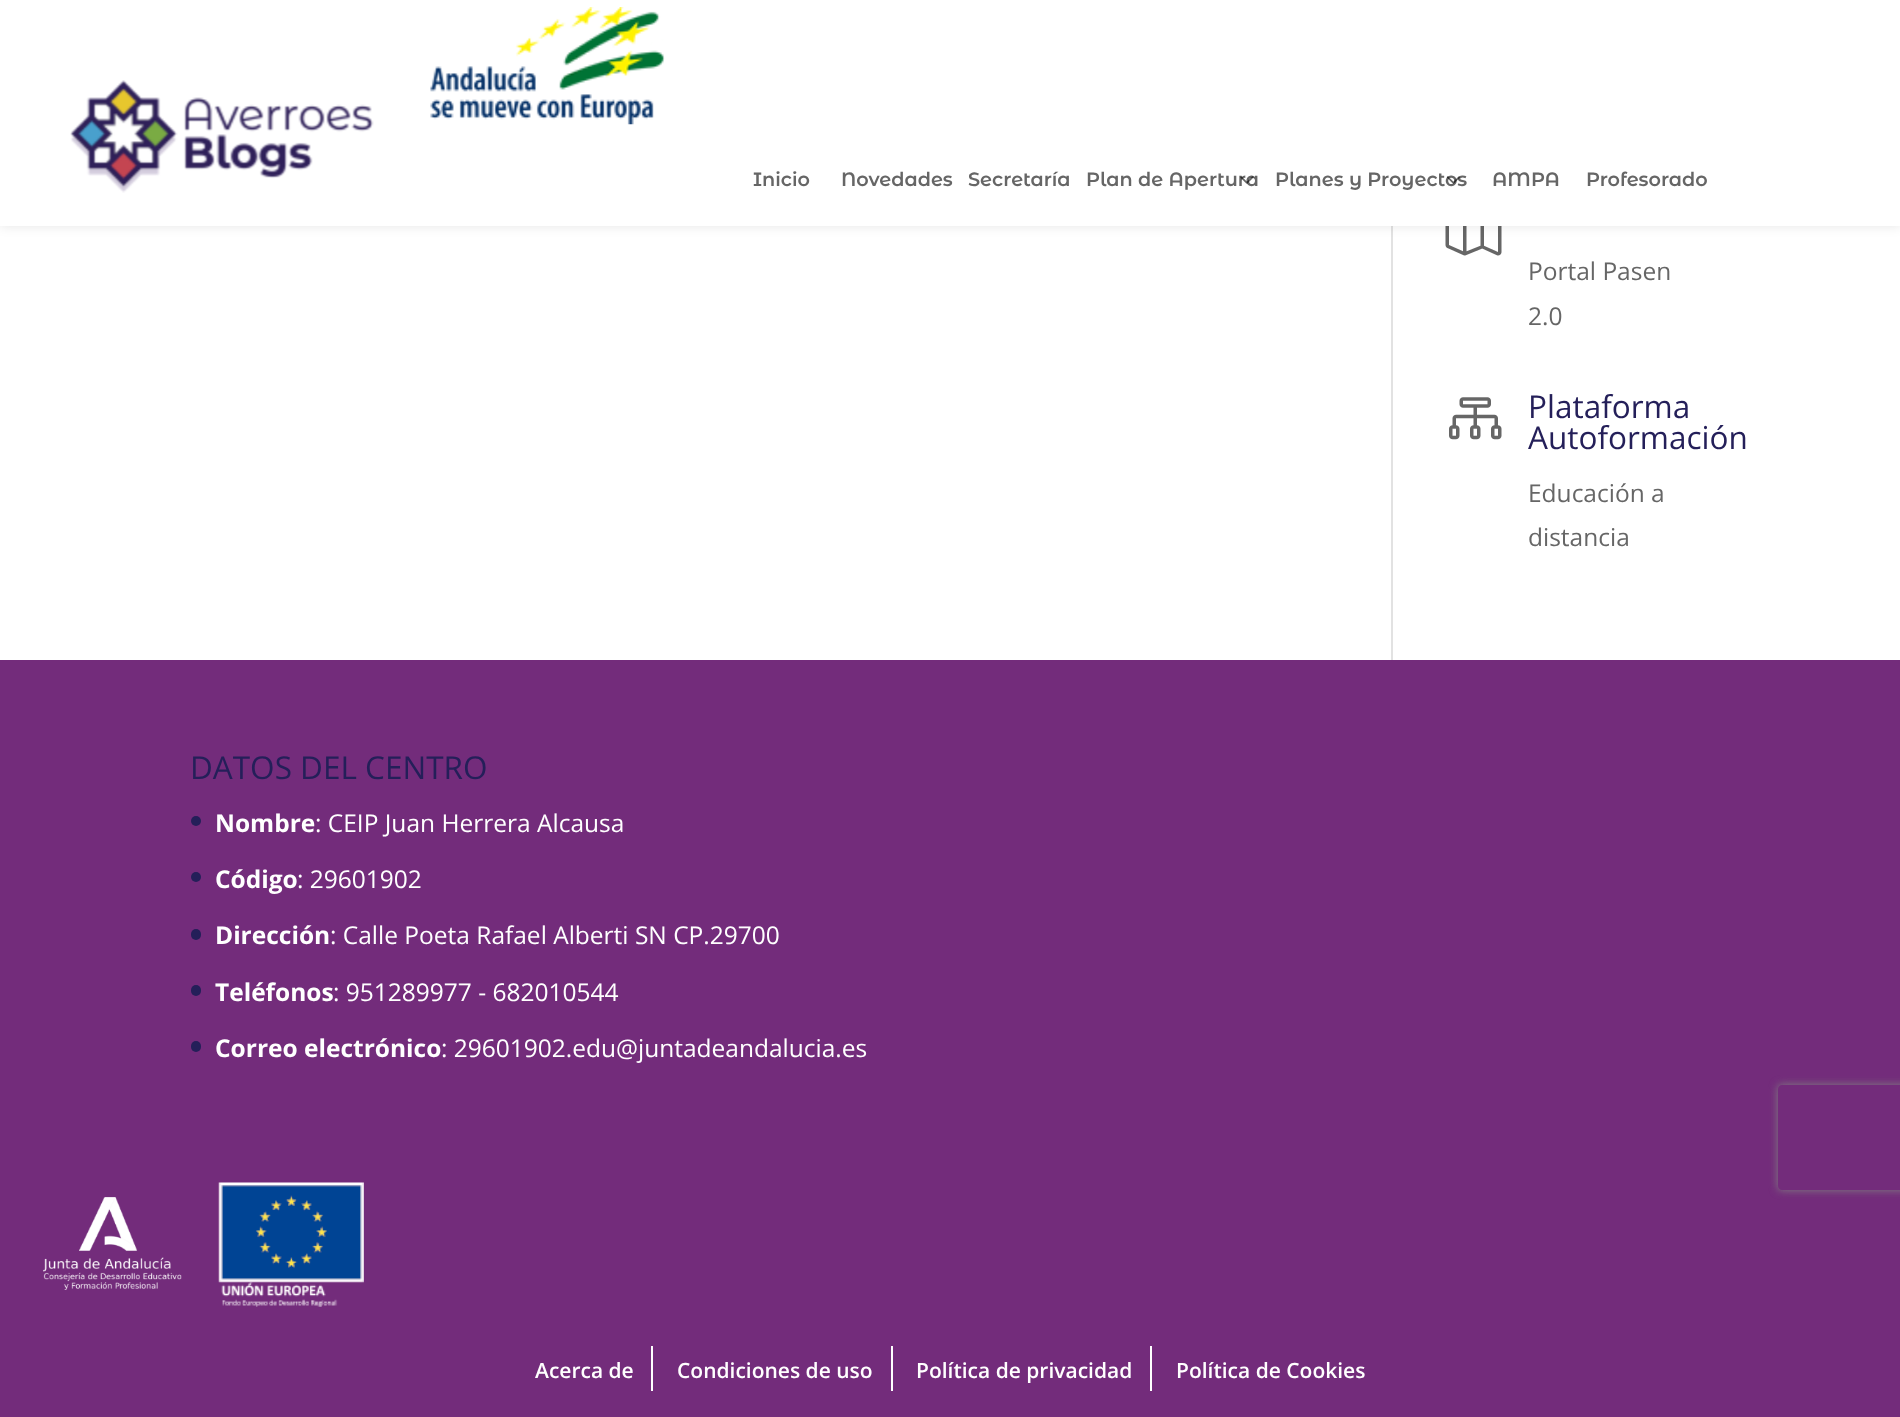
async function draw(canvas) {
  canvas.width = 1900
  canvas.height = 1417
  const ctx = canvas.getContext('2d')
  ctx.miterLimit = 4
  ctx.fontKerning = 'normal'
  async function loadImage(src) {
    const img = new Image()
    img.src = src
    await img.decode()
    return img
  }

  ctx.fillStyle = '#fff'
  ctx.fillRect(0, 0, 1900, 1417)
  ctx.fillStyle = '#e2e2e2'
  ctx.fillRect(1391, 226, 2, 434)
  ctx.drawImage(await loadImage('image4.png'), 1445, 226, 57, 30)
  ctx.fillStyle = '#0000001a'
  ctx.filter = 'blur(6px)'
  ctx.beginPath()
  ctx.rect(0, 0, 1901, 226)
  ctx.fill()
  ctx.filter = 'none'
  ctx.fillStyle = '#fff'
  ctx.fillRect(0, 0, 1900, 226)
  ctx.drawImage(await loadImage('image0.png'), 430, 7, 235, 118)
  ctx.drawImage(await loadImage('image1.png'), 70, 80, 304, 113)
  ctx.font = '600 19.25px Montserrat Alternates'
  ctx.fillStyle = '#666'
  ctx.fillText('Inicio', 753, 186)
  ctx.fillText('Novedades', 841, 186)
  ctx.fillText('Secretaría', 968, 186)
  ctx.fillText('Plan de Apertura', 1086, 186)
  ctx.drawImage(await loadImage('image2.png'), 1240, 176, 14, 8)
  ctx.fillText('Planes y Proyectos', 1275, 186)
  ctx.drawImage(await loadImage('image3.png'), 1446, 176, 14, 8)
  ctx.fillText('AMPA', 1492, 186)
  ctx.fillText('Profesorado', 1586, 186)
  ctx.font = '24.5px Open Sans'
  ctx.fillText('Portal Pasen', 1528, 280)
  ctx.fillText('2.0', 1528, 325)
  ctx.drawImage(await loadImage('image5.png'), 1449, 397, 53, 43)
  ctx.font = '31.5px Open Sans'
  ctx.fillStyle = '#241f59'
  ctx.fillText('Plataforma', 1528, 418)
  ctx.fillText('Autoformación', 1528, 449)
  ctx.font = '24.5px Open Sans'
  ctx.fillStyle = '#666'
  ctx.fillText('Educación a', 1528, 502)
  ctx.fillText('distancia', 1528, 546)
  ctx.fillStyle = '#732c7b'
  ctx.fillRect(0, 660, 1900, 757)
  ctx.font = '31.5px Open Sans'
  ctx.fillStyle = '#241f59'
  ctx.fillText('DATOS DEL CENTRO', 190, 779)
  ctx.beginPath()
  ctx.arc(196, 821, 5, 0, 2 * Math.PI)
  ctx.fill()
  ctx.font = 'bold 24.5px Open Sans'
  ctx.fillStyle = '#fff'
  ctx.fillText('Nombre', 215, 832)
  ctx.font = '24.5px Open Sans'
  ctx.fillText(': CEIP Juan Herrera Alcausa', 315, 832)
  ctx.fillStyle = '#241f59'
  ctx.beginPath()
  ctx.arc(196, 877, 5, 0, 2 * Math.PI)
  ctx.fill()
  ctx.font = 'bold 24.5px Open Sans'
  ctx.fillStyle = '#fff'
  ctx.fillText('Código', 215, 888)
  ctx.font = '24.5px Open Sans'
  ctx.fillText(': 29601902', 297, 888)
  ctx.fillStyle = '#241f59'
  ctx.beginPath()
  ctx.roundRect(191, 929, 10, 11, 5)
  ctx.fill()
  ctx.font = 'bold 24.5px Open Sans'
  ctx.fillStyle = '#fff'
  ctx.fillText('Dirección', 215, 944)
  ctx.font = '24.5px Open Sans'
  ctx.fillText(': Calle Poeta Rafael Alberti SN CP.29700', 330, 944)
  ctx.fillStyle = '#241f59'
  ctx.beginPath()
  ctx.roundRect(191, 985, 10, 11, 5)
  ctx.fill()
  ctx.font = 'bold 24.5px Open Sans'
  ctx.fillStyle = '#fff'
  ctx.fillText('Teléfonos', 215, 1001)
  ctx.font = '24.5px Open Sans'
  ctx.fillText(': 951289977 - 682010544', 333, 1001)
  ctx.fillStyle = '#241f59'
  ctx.beginPath()
  ctx.roundRect(191, 1041, 10, 11, 5)
  ctx.fill()
  ctx.font = 'bold 24.5px Open Sans'
  ctx.fillStyle = '#fff'
  ctx.fillText('Correo electrónico', 215, 1057)
  ctx.font = '24.5px Open Sans'
  ctx.fillText(': 29601902.edu@juntadeandalucia.es', 441, 1057)
  ctx.drawImage(await loadImage('image6.png'), 43, 1197, 139, 93)
  ctx.drawImage(await loadImage('image7.png'), 218, 1182, 146, 125)
  ctx.fillRect(651, 1346, 2, 45)
  ctx.font = '600 21px Open Sans'
  ctx.fillText('Acerca de', 535, 1378)
  ctx.fillRect(891, 1346, 2, 45)
  ctx.fillText('Condiciones de uso', 677, 1378)
  ctx.fillRect(1150, 1346, 2, 45)
  ctx.fillText('Política de privacidad', 916, 1378)
  ctx.fillText('Política de Cookies', 1176, 1378)
  ctx.save()
  ctx.beginPath()
  ctx.moveTo(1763, 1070)
  ctx.lineTo(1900, 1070)
  ctx.lineTo(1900, 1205)
  ctx.lineTo(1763, 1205)
  ctx.closePath()
  ctx.moveTo(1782, 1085)
  ctx.lineTo(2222, 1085)
  ctx.bezierCurveTo(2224, 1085, 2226, 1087, 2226, 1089)
  ctx.lineTo(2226, 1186)
  ctx.bezierCurveTo(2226, 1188, 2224, 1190, 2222, 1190)
  ctx.lineTo(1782, 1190)
  ctx.bezierCurveTo(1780, 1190, 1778, 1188, 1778, 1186)
  ctx.lineTo(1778, 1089)
  ctx.bezierCurveTo(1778, 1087, 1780, 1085, 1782, 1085)
  ctx.closePath()
  ctx.clip('evenodd')
  ctx.fillStyle = '#808080'
  ctx.filter = 'blur(4.5px)'
  ctx.beginPath()
  ctx.roundRect(1778, 1085, 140, 105, 4)
  ctx.fill()
  ctx.filter = 'none'
  ctx.restore()
}

draw(document.querySelector('canvas'))
